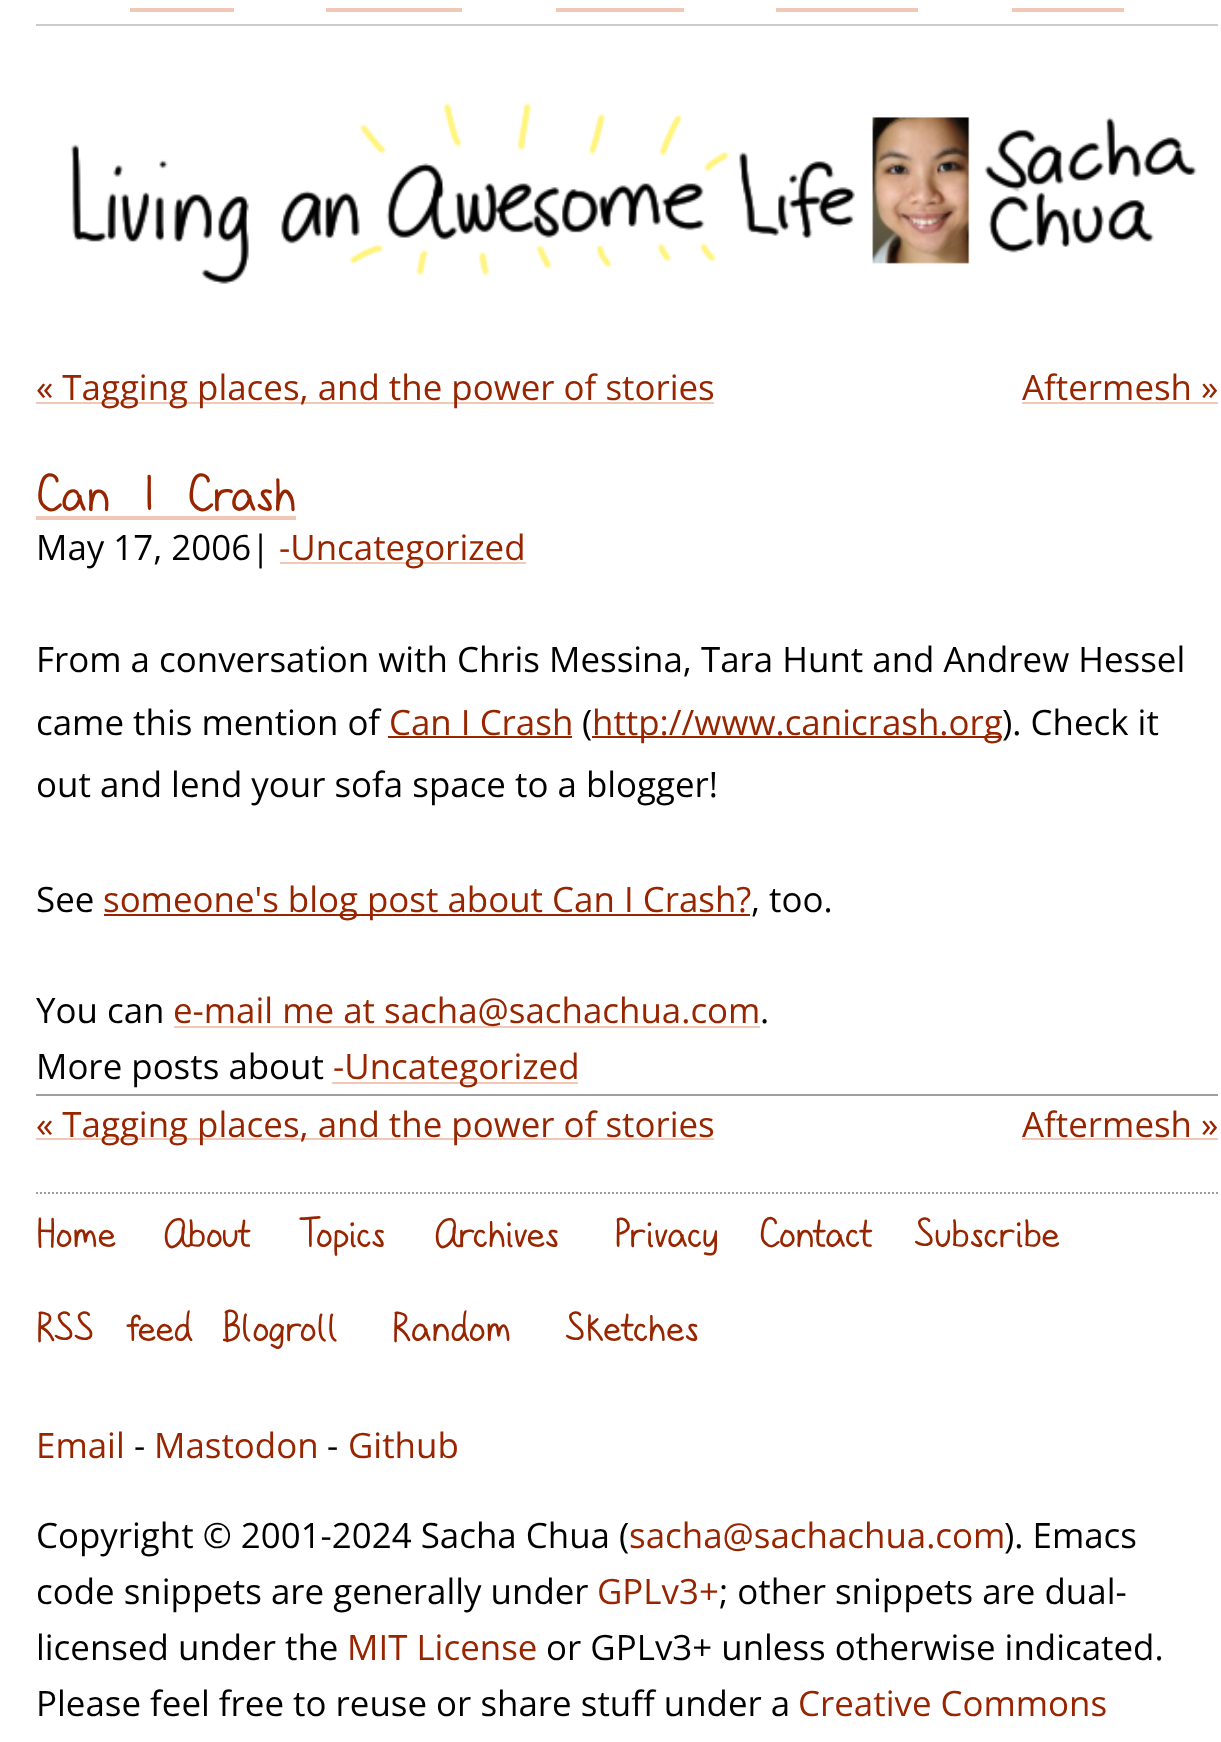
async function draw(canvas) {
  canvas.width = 1221
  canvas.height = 1742
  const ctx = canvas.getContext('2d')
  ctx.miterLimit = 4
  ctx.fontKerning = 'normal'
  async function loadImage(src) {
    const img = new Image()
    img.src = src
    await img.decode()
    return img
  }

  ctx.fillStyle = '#fff'
  ctx.fillRect(0, 0, 1221, 1742)
  ctx.fillStyle = '#ccc'
  ctx.fillRect(36, 24, 1182, 2)
  ctx.fillStyle = '#f1c8b5'
  ctx.fillRect(130, 8, 104, 4)
  ctx.fillRect(326, 8, 136, 4)
  ctx.fillRect(556, 8, 128, 4)
  ctx.fillRect(776, 8, 142, 4)
  ctx.fillRect(1012, 8, 112, 4)
  ctx.drawImage(await loadImage('image0.png'), 70, 102, 1127, 182)
  ctx.fillRect(36, 402, 678, 2)
  ctx.font = '34.9px Open Sans'
  ctx.fillStyle = '#972500'
  ctx.fillText('« Tagging places, and the power of stories', 36, 400)
  ctx.fillText('Aftermesh »', 1022, 400)
  ctx.fillStyle = '#f1c8b5'
  ctx.fillRect(1022, 402, 196, 2)
  ctx.fillStyle = '#9f9f9f'
  ctx.fillRect(36, 1094, 1182, 2)
  ctx.wordSpacing = '22px'
  ctx.font = '56.5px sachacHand'
  ctx.fillStyle = '#972500'
  ctx.fillText('Can I Crash', 36, 511)
  ctx.fillStyle = '#f1c8b5'
  ctx.fillRect(36, 516, 260, 4)
  ctx.wordSpacing = '0px'
  ctx.font = '34.9px Open Sans'
  ctx.fillStyle = '#000'
  ctx.fillText('May 17, 2006|', 36, 560)
  ctx.fillStyle = '#f1c8b5'
  ctx.fillRect(280, 562, 246, 2)
  ctx.fillStyle = '#972500'
  ctx.fillText('-Uncategorized', 279, 560)
  ctx.fillStyle = '#000'
  ctx.fillText('From a conversation with Chris Messina, Tara Hunt and Andrew Hessel', 36, 672)
  ctx.fillText('came this mention of', 36, 735)
  ctx.fillStyle = '#972500'
  ctx.fillText('Can I Crash', 389, 735)
  ctx.fillRect(388, 736, 184, 2)
  ctx.fillStyle = '#000'
  ctx.fillText('(', 582, 735)
  ctx.fillStyle = '#972500'
  ctx.fillRect(592, 736, 410, 2)
  ctx.fillText('http://www.canicrash.org', 592, 735)
  ctx.fillStyle = '#000'
  ctx.fillText('). Check it', 1002, 735)
  ctx.fillText('out and lend your sofa space to a blogger!', 36, 797)
  ctx.fillText('See', 36, 912)
  ctx.fillStyle = '#972500'
  ctx.fillRect(104, 914, 646, 2)
  ctx.fillText('someone\'s blog post about Can I Crash?', 103, 912)
  ctx.fillStyle = '#000'
  ctx.fillText(', too.', 751, 912)
  ctx.fillText('You can', 36, 1023)
  ctx.fillStyle = '#f1c8b5'
  ctx.fillRect(174, 1026, 586, 2)
  ctx.fillStyle = '#972500'
  ctx.fillText('e-mail me at sacha@sachachua.com', 173, 1023)
  ctx.fillStyle = '#000'
  ctx.fillText('.', 760, 1023)
  ctx.fillText('More posts about', 36, 1079)
  ctx.fillStyle = '#f1c8b5'
  ctx.fillRect(332, 1082, 246, 2)
  ctx.fillStyle = '#972500'
  ctx.fillText('-Uncategorized', 333, 1079)
  ctx.fillStyle = '#f1c8b5'
  ctx.fillRect(36, 1138, 678, 2)
  ctx.fillStyle = '#972500'
  ctx.fillText('« Tagging places, and the power of stories', 36, 1137)
  ctx.fillText('Aftermesh »', 1022, 1137)
  ctx.fillStyle = '#f1c8b5'
  ctx.fillRect(1022, 1138, 196, 2)
  ctx.beginPath()
  ctx.moveTo(36, 1193)
  ctx.lineTo(1218, 1193)
  ctx.strokeStyle = '#9f9f9f'
  ctx.lineWidth = 2
  ctx.setLineDash([2, 2])
  ctx.stroke()
  ctx.font = '45px sachacHand'
  ctx.fillStyle = '#972500'
  ctx.fillText('Home', 36, 1247)
  ctx.fillText('About', 163, 1247)
  ctx.fillText('Topics', 298, 1247)
  ctx.fillText('Archives', 434, 1247)
  ctx.fillText('Privacy', 614, 1247)
  ctx.fillText('Contact', 759, 1247)
  ctx.fillText('Subscribe', 914, 1247)
  ctx.wordSpacing = '26px'
  ctx.fillText('RSS feed', 36, 1341)
  ctx.wordSpacing = '0px'
  ctx.fillText('Blogroll', 222, 1341)
  ctx.fillText('Random', 392, 1341)
  ctx.fillText('Sketches', 565, 1341)
  ctx.font = '34.9px Open Sans'
  ctx.fillText('Email', 36, 1458)
  ctx.fillStyle = '#000'
  ctx.fillText('-', 134, 1458)
  ctx.fillStyle = '#972500'
  ctx.fillText('Mastodon', 154, 1458)
  ctx.fillStyle = '#000'
  ctx.fillText('-', 327, 1458)
  ctx.fillStyle = '#972500'
  ctx.fillText('Github', 348, 1458)
  ctx.fillStyle = '#000'
  ctx.fillText('Copyright © 2001-2024 Sacha Chua (', 36, 1548)
  ctx.fillStyle = '#972500'
  ctx.fillText('sacha@sachachua.com', 629, 1548)
  ctx.fillStyle = '#000'
  ctx.fillText('). Emacs', 1004, 1548)
  ctx.fillText('code snippets are generally under', 36, 1604)
  ctx.fillStyle = '#972500'
  ctx.fillText('GPLv3+', 597, 1604)
  ctx.fillStyle = '#000'
  ctx.fillText('; other snippets are dual-', 719, 1604)
  ctx.fillText('licensed under the', 36, 1660)
  ctx.fillStyle = '#972500'
  ctx.fillText('MIT License', 347, 1660)
  ctx.fillStyle = '#000'
  ctx.fillText('or GPLv3+ unless otherwise indicated.', 546, 1660)
  ctx.fillText('Please feel free to reuse or share stuff under a', 36, 1716)
  ctx.fillStyle = '#972500'
  ctx.fillText('Creative Commons', 798, 1716)
}

draw(document.querySelector('canvas'))
